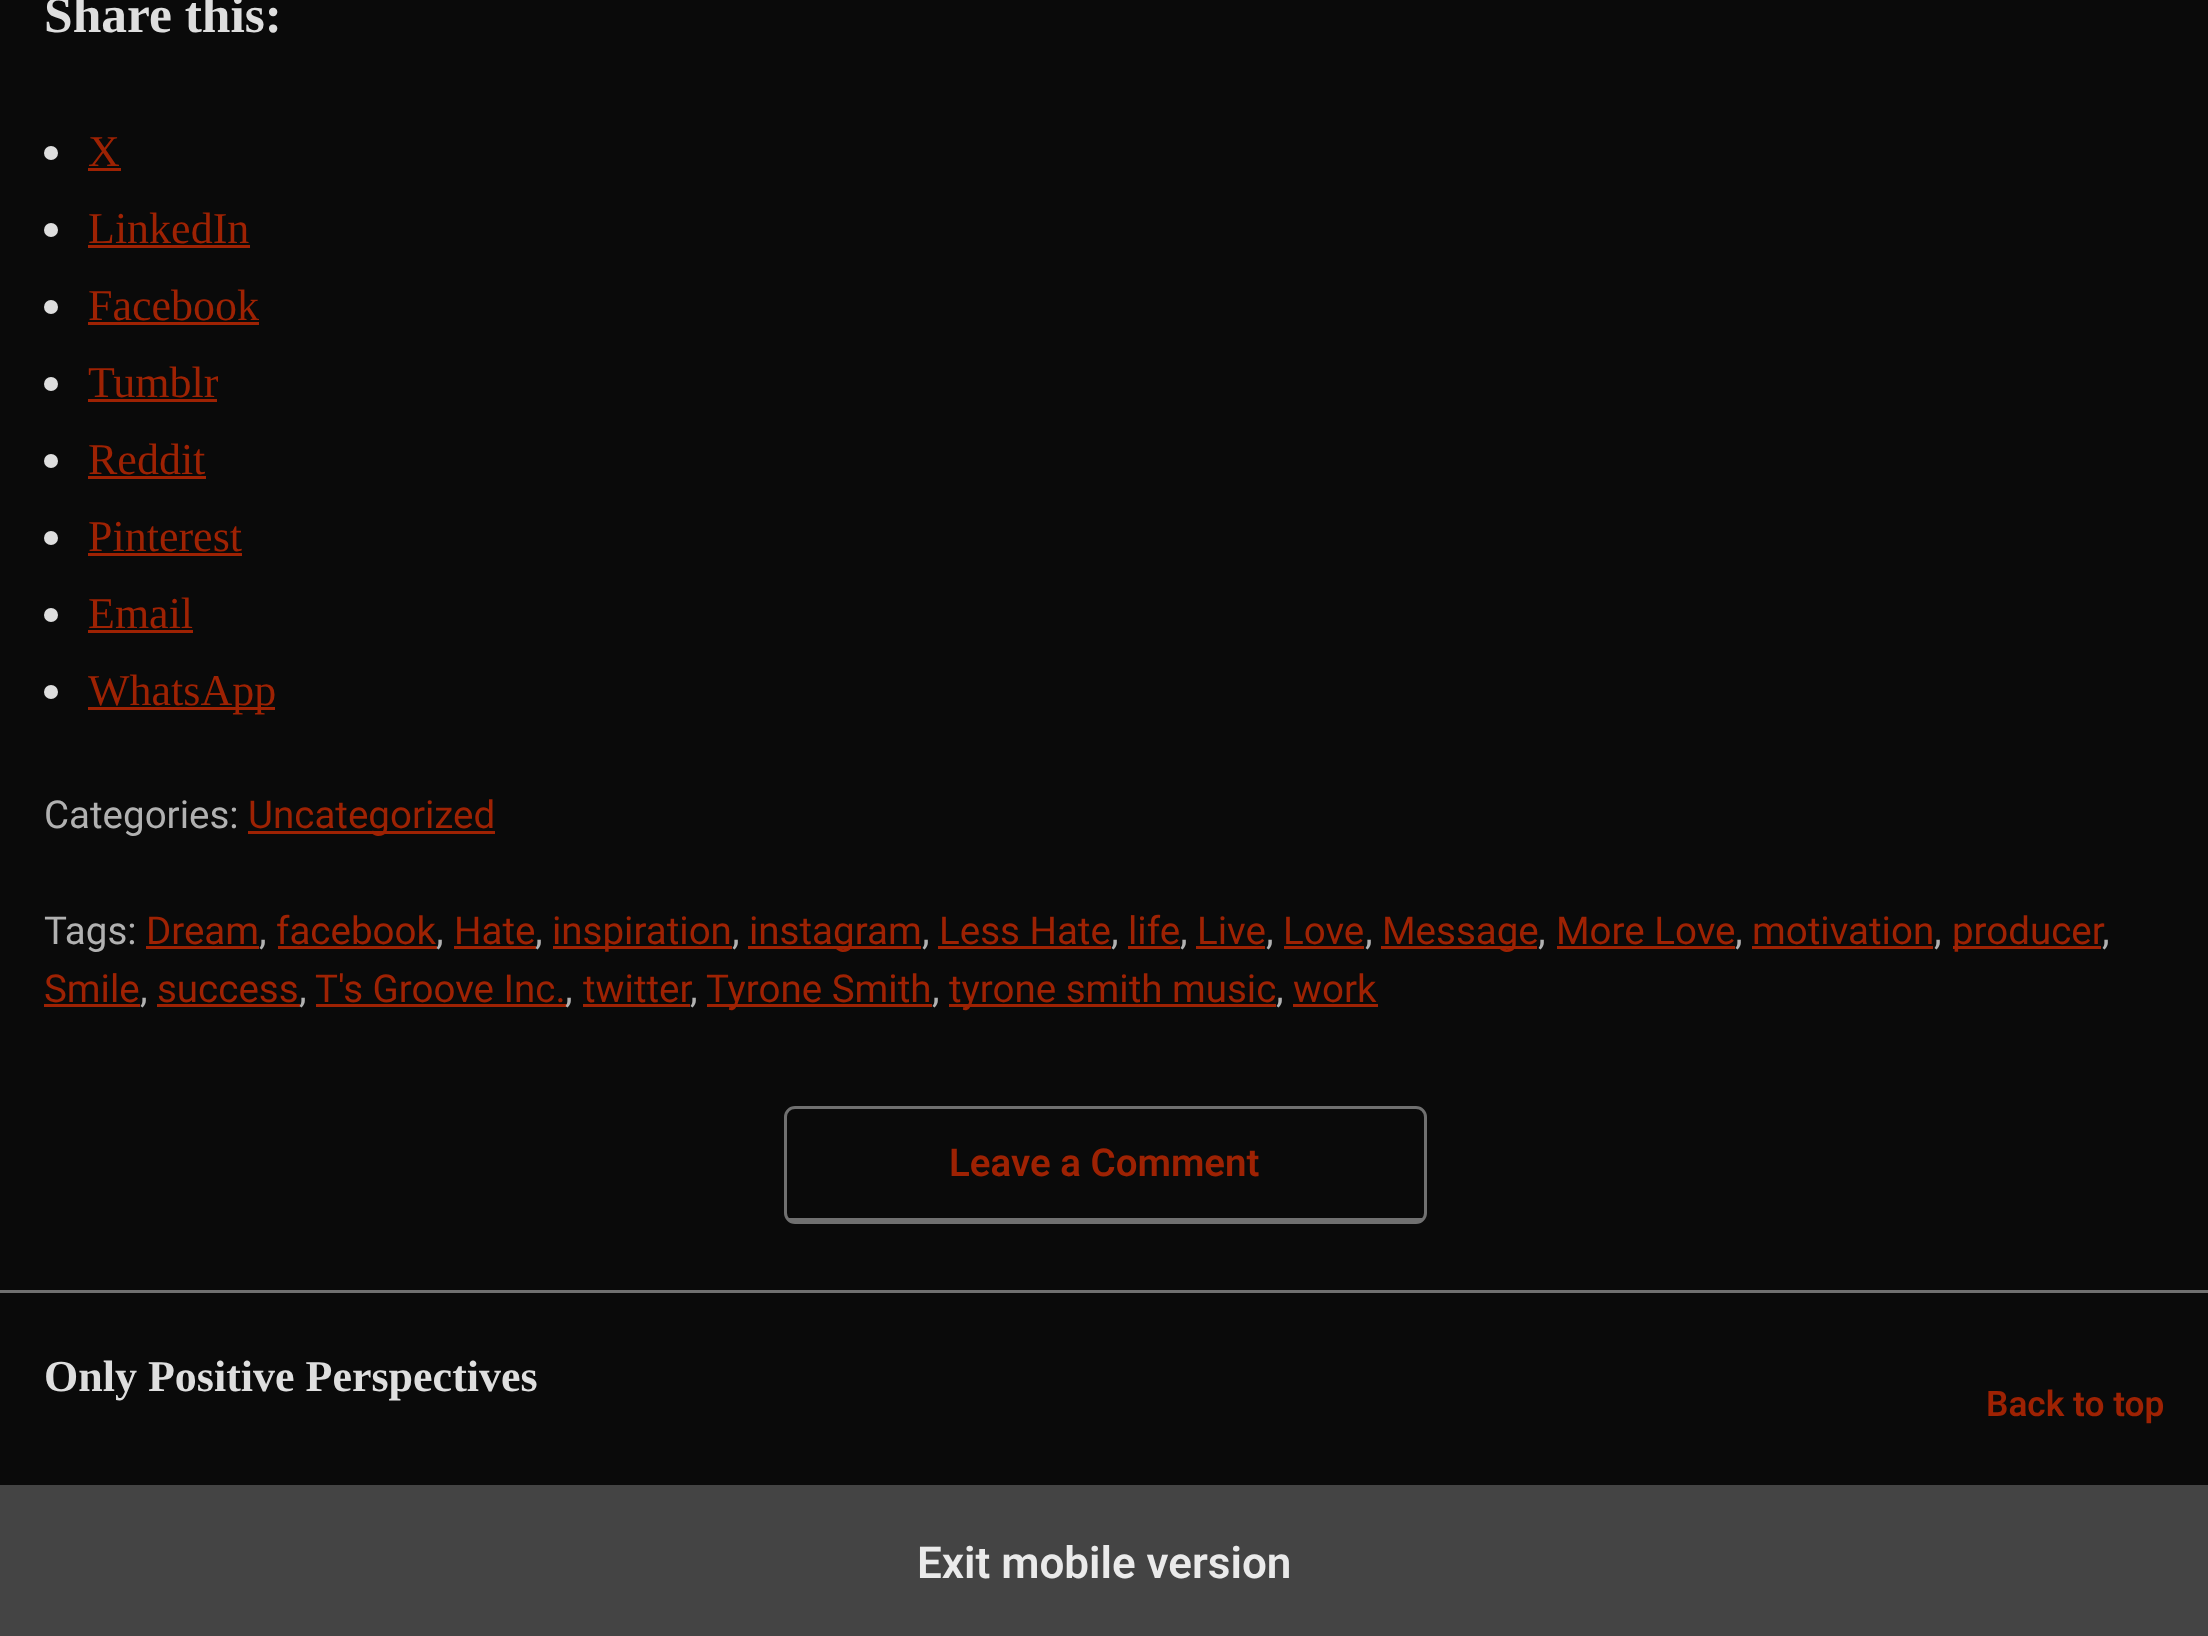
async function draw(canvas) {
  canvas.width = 2208
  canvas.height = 1636
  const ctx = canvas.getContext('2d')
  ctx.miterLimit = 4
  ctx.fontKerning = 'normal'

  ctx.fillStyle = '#0a0a0a'
  ctx.fillRect(0, 0, 2208, 1636)
  ctx.font = 'bold 51.5px Liberation Serif'
  ctx.fillStyle = '#dedede'
  ctx.fillText('Share this:', 44, 32)
  ctx.beginPath()
  ctx.arc(51, 153, 7, 0, 2 * Math.PI)
  ctx.fill()
  ctx.font = '44px Liberation Serif'
  ctx.fillStyle = '#9e2203'
  ctx.fillText('X', 88, 166)
  ctx.fillRect(88, 168, 33, 3)
  ctx.fillStyle = '#dedede'
  ctx.beginPath()
  ctx.arc(51, 230, 7, 0, 2 * Math.PI)
  ctx.fill()
  ctx.fillStyle = '#9e2203'
  ctx.fillText('LinkedIn', 88, 243)
  ctx.fillRect(88, 245, 162, 3)
  ctx.fillStyle = '#dedede'
  ctx.beginPath()
  ctx.arc(51, 307, 7, 0, 2 * Math.PI)
  ctx.fill()
  ctx.fillStyle = '#9e2203'
  ctx.fillText('Facebook', 88, 320)
  ctx.fillRect(88, 322, 171, 3)
  ctx.fillStyle = '#dedede'
  ctx.beginPath()
  ctx.arc(51, 384, 7, 0, 2 * Math.PI)
  ctx.fill()
  ctx.fillStyle = '#9e2203'
  ctx.fillText('Tumblr', 88, 397)
  ctx.fillRect(88, 399, 129, 3)
  ctx.fillStyle = '#dedede'
  ctx.beginPath()
  ctx.arc(51, 461, 7, 0, 2 * Math.PI)
  ctx.fill()
  ctx.fillStyle = '#9e2203'
  ctx.fillText('Reddit', 88, 474)
  ctx.fillRect(88, 476, 118, 3)
  ctx.fillStyle = '#dedede'
  ctx.beginPath()
  ctx.arc(51, 538, 7, 0, 2 * Math.PI)
  ctx.fill()
  ctx.fillStyle = '#9e2203'
  ctx.fillText('Pinterest', 88, 551)
  ctx.fillRect(88, 553, 154, 3)
  ctx.fillStyle = '#dedede'
  ctx.beginPath()
  ctx.arc(51, 615, 7, 0, 2 * Math.PI)
  ctx.fill()
  ctx.fillStyle = '#9e2203'
  ctx.fillText('Email', 88, 628)
  ctx.fillRect(88, 630, 105, 3)
  ctx.fillStyle = '#dedede'
  ctx.beginPath()
  ctx.arc(51, 692, 7, 0, 2 * Math.PI)
  ctx.fill()
  ctx.fillStyle = '#9e2203'
  ctx.fillRect(88, 707, 187, 3)
  ctx.fillText('WhatsApp', 88, 705)
  ctx.font = '38.5px Roboto'
  ctx.fillStyle = '#b1b1b1'
  ctx.fillText('Categories:', 44, 828)
  ctx.fillStyle = '#9e2203'
  ctx.fillRect(248, 831, 247, 3)
  ctx.fillText('Uncategorized', 248, 828)
  ctx.fillStyle = '#b1b1b1'
  ctx.fillText('Tags:', 44, 944)
  ctx.fillStyle = '#9e2203'
  ctx.fillText('Dream', 146, 944)
  ctx.fillRect(146, 946, 113, 3)
  ctx.fillStyle = '#b1b1b1'
  ctx.fillText(',', 259, 944)
  ctx.fillStyle = '#9e2203'
  ctx.fillText('facebook', 276, 944)
  ctx.fillRect(278, 946, 159, 3)
  ctx.fillStyle = '#b1b1b1'
  ctx.fillText(',', 436, 944)
  ctx.fillStyle = '#9e2203'
  ctx.fillText('Hate', 454, 944)
  ctx.fillRect(454, 946, 82, 3)
  ctx.fillStyle = '#b1b1b1'
  ctx.fillText(',', 535, 944)
  ctx.fillStyle = '#9e2203'
  ctx.fillRect(553, 946, 179, 3)
  ctx.fillText('inspiration', 552, 944)
  ctx.fillStyle = '#b1b1b1'
  ctx.fillText(',', 732, 944)
  ctx.fillStyle = '#9e2203'
  ctx.fillRect(748, 946, 173, 3)
  ctx.fillText('instagram', 749, 944)
  ctx.fillStyle = '#b1b1b1'
  ctx.fillText(',', 922, 944)
  ctx.fillStyle = '#9e2203'
  ctx.fillText('Less Hate', 939, 944)
  ctx.fillRect(938, 946, 173, 3)
  ctx.fillStyle = '#b1b1b1'
  ctx.fillText(',', 1111, 944)
  ctx.fillStyle = '#9e2203'
  ctx.fillText('life', 1128, 944)
  ctx.fillRect(1128, 946, 52, 3)
  ctx.fillStyle = '#b1b1b1'
  ctx.fillText(',', 1180, 944)
  ctx.fillStyle = '#9e2203'
  ctx.fillText('Live', 1197, 944)
  ctx.fillRect(1196, 946, 69, 3)
  ctx.fillStyle = '#b1b1b1'
  ctx.fillText(',', 1266, 944)
  ctx.fillStyle = '#9e2203'
  ctx.fillText('Love', 1283, 944)
  ctx.fillRect(1284, 946, 80, 3)
  ctx.fillStyle = '#b1b1b1'
  ctx.fillText(',', 1365, 944)
  ctx.fillStyle = '#9e2203'
  ctx.fillRect(1381, 946, 156, 3)
  ctx.fillText('Message', 1382, 944)
  ctx.fillStyle = '#b1b1b1'
  ctx.fillText(',', 1538, 944)
  ctx.fillStyle = '#9e2203'
  ctx.fillText('More Love', 1556, 944)
  ctx.fillRect(1557, 946, 178, 3)
  ctx.fillStyle = '#b1b1b1'
  ctx.fillText(',', 1735, 944)
  ctx.fillStyle = '#9e2203'
  ctx.fillText('motivation', 1752, 944)
  ctx.fillRect(1752, 946, 181, 3)
  ctx.fillStyle = '#b1b1b1'
  ctx.fillText(',', 1934, 944)
  ctx.fillStyle = '#9e2203'
  ctx.fillRect(1953, 946, 148, 3)
  ctx.fillText('producer', 1952, 944)
  ctx.fillStyle = '#b1b1b1'
  ctx.fillText(',', 2102, 944)
  ctx.fillStyle = '#9e2203'
  ctx.fillText('Smile', 44, 1002)
  ctx.fillRect(44, 1004, 96, 3)
  ctx.fillStyle = '#b1b1b1'
  ctx.fillText(',', 140, 1002)
  ctx.fillStyle = '#9e2203'
  ctx.fillText('success', 157, 1002)
  ctx.fillRect(157, 1004, 143, 3)
  ctx.fillStyle = '#b1b1b1'
  ctx.fillText(',', 299, 1002)
  ctx.fillStyle = '#9e2203'
  ctx.fillText('T\'s Groove Inc.', 315, 1002)
  ctx.fillRect(316, 1004, 251, 3)
  ctx.fillStyle = '#b1b1b1'
  ctx.fillText(',', 565, 1002)
  ctx.fillStyle = '#9e2203'
  ctx.fillText('twitter', 583, 1002)
  ctx.fillRect(583, 1004, 107, 3)
  ctx.fillStyle = '#b1b1b1'
  ctx.fillText(',', 690, 1002)
  ctx.fillStyle = '#9e2203'
  ctx.fillRect(707, 1004, 225, 3)
  ctx.fillText('Tyrone Smith', 706, 1002)
  ctx.fillStyle = '#b1b1b1'
  ctx.fillText(',', 932, 1002)
  ctx.fillStyle = '#9e2203'
  ctx.fillRect(949, 1004, 327, 3)
  ctx.fillText('tyrone smith music', 949, 1002)
  ctx.fillStyle = '#b1b1b1'
  ctx.fillText(',', 1276, 1002)
  ctx.fillStyle = '#9e2203'
  ctx.fillText('work', 1293, 1002)
  ctx.fillRect(1293, 1004, 85, 3)
  ctx.beginPath()
  ctx.roundRect(785.5, 1107.5, 640, 115, 9.5)
  ctx.strokeStyle = '#707070'
  ctx.lineWidth = 3
  ctx.stroke()
  ctx.fillStyle = '#707070'
  ctx.fillRect(789, 1218, 633, 3)
  ctx.font = '600 38.5px Roboto'
  ctx.fillStyle = '#9e2203'
  ctx.fillText('Leave a Comment', 949, 1176)
  ctx.fillStyle = '#707070'
  ctx.fillRect(0, 1290, 2208, 3)
  ctx.font = 'bold 44px Liberation Serif'
  ctx.fillStyle = '#dedede'
  ctx.fillText('Only Positive Perspectives', 44, 1391)
  ctx.font = '600 35.25px Roboto'
  ctx.fillStyle = '#9e2203'
  ctx.fillText('Back to top', 1986, 1416)
  ctx.fillStyle = '#444'
  ctx.fillRect(0, 1485, 2208, 151)
  ctx.font = '600 44px Roboto'
  ctx.fillStyle = '#eaeaea'
  ctx.fillText('Exit mobile version', 917, 1578)
}

draw(document.querySelector('canvas'))
